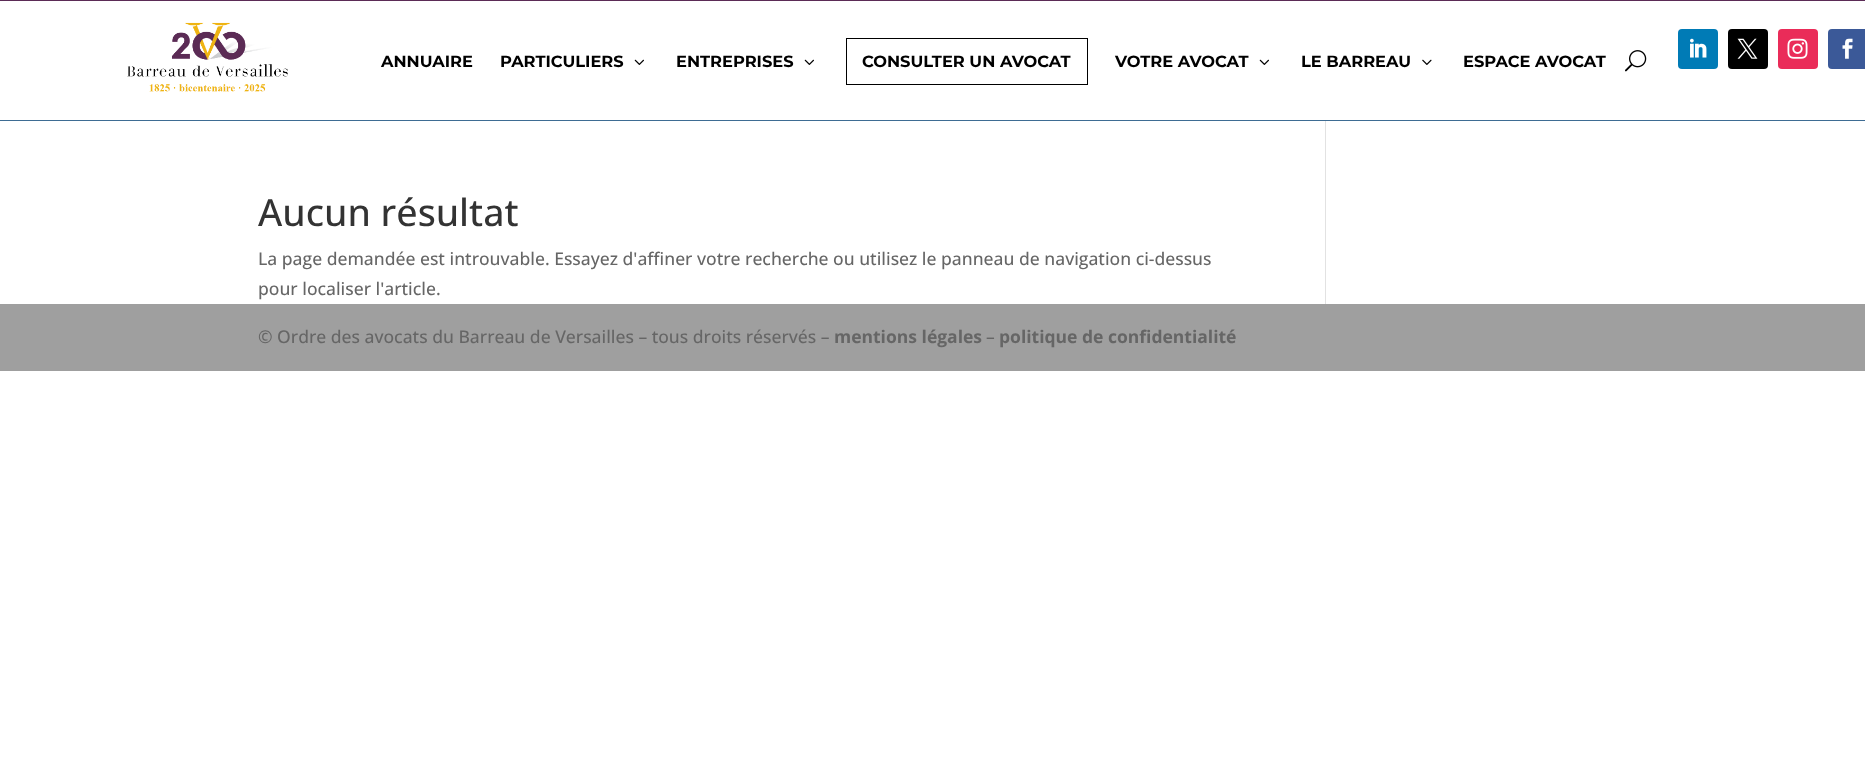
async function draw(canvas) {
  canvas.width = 1865
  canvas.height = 768
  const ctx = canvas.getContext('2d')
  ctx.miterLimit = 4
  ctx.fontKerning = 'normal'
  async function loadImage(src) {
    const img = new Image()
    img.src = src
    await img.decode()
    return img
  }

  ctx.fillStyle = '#fff'
  ctx.fillRect(0, 0, 1865, 768)
  ctx.fillStyle = '#5b2b56'
  ctx.fillRect(0, 0, 1865, 1)
  ctx.drawImage(await loadImage('image0.png'), 127, 22, 161, 70)
  ctx.font = 'bold 16.25px Montserrat'
  ctx.fillStyle = '#000'
  ctx.fillText('ANNUAIRE', 381, 67)
  ctx.fillText('PARTICULIERS', 500, 67)
  ctx.drawImage(await loadImage('image1.png'), 634, 59, 10, 6)
  ctx.fillText('ENTREPRISES', 676, 67)
  ctx.drawImage(await loadImage('image1.png'), 804, 59, 10, 6)
  ctx.strokeStyle = '#000'
  ctx.strokeRect(846.5, 38.5, 241, 46)
  ctx.fillText('CONSULTER UN AVOCAT', 862, 67)
  ctx.fillText('VOTRE AVOCAT', 1115, 67)
  ctx.drawImage(await loadImage('image1.png'), 1259, 59, 10, 6)
  ctx.fillText('LE BARREAU', 1301, 67)
  ctx.drawImage(await loadImage('image2.png'), 1422, 59, 10, 6)
  ctx.fillText('ESPACE AVOCAT', 1463, 67)
  ctx.drawImage(await loadImage('image3.png'), 1625, 50, 22, 22)
  ctx.fillStyle = '#007bb6'
  ctx.beginPath()
  ctx.roundRect(1678, 29, 40, 40, 4)
  ctx.fill()
  ctx.drawImage(await loadImage('image4.png'), 1690, 38, 17, 20)
  ctx.fillStyle = '#000'
  ctx.beginPath()
  ctx.roundRect(1728, 29, 40, 40, 4)
  ctx.fill()
  ctx.drawImage(await loadImage('image5.png'), 1737, 38, 21, 21)
  ctx.fillStyle = '#ea2c59'
  ctx.beginPath()
  ctx.roundRect(1778, 29, 40, 40, 4)
  ctx.fill()
  ctx.drawImage(await loadImage('image6.png'), 1787, 38, 21, 21)
  ctx.fillStyle = '#3b5998'
  ctx.beginPath()
  ctx.roundRect(1828, 29, 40, 40, 4)
  ctx.fill()
  ctx.drawImage(await loadImage('image7.png'), 1842, 38, 11, 21)
  ctx.fillStyle = '#3e6c93'
  ctx.fillRect(0, 120, 1865, 1)
  ctx.font = '500 37.5px Open Sans'
  ctx.fillStyle = '#333'
  ctx.fillText('Aucun résultat', 258, 226)
  ctx.font = '500 17.5px Open Sans'
  ctx.fillStyle = '#666'
  ctx.fillText('La page demandée est introuvable. Essayez d\'affiner votre recherche ou utilisez le panneau de navigation ci-dessus', 258, 265)
  ctx.fillText('pour localiser l\'article.', 258, 295)
  ctx.fillStyle = '#e2e2e2'
  ctx.fillRect(1325, 121, 1, 183)
  ctx.fillStyle = '#9f9f9f'
  ctx.fillRect(0, 304, 1865, 67)
  ctx.fillStyle = '#666'
  ctx.fillText('© Ordre des avocats du Barreau de Versailles – tous droits réservés –', 258, 343)
  ctx.font = 'bold 17.5px Open Sans'
  ctx.fillText('mentions légales', 834, 343)
  ctx.font = '500 17.5px Open Sans'
  ctx.fillText('–', 986, 343)
  ctx.font = 'bold 17.5px Open Sans'
  ctx.fillText('politique de confidentialité', 999, 343)
}

draw(document.querySelector('canvas'))
